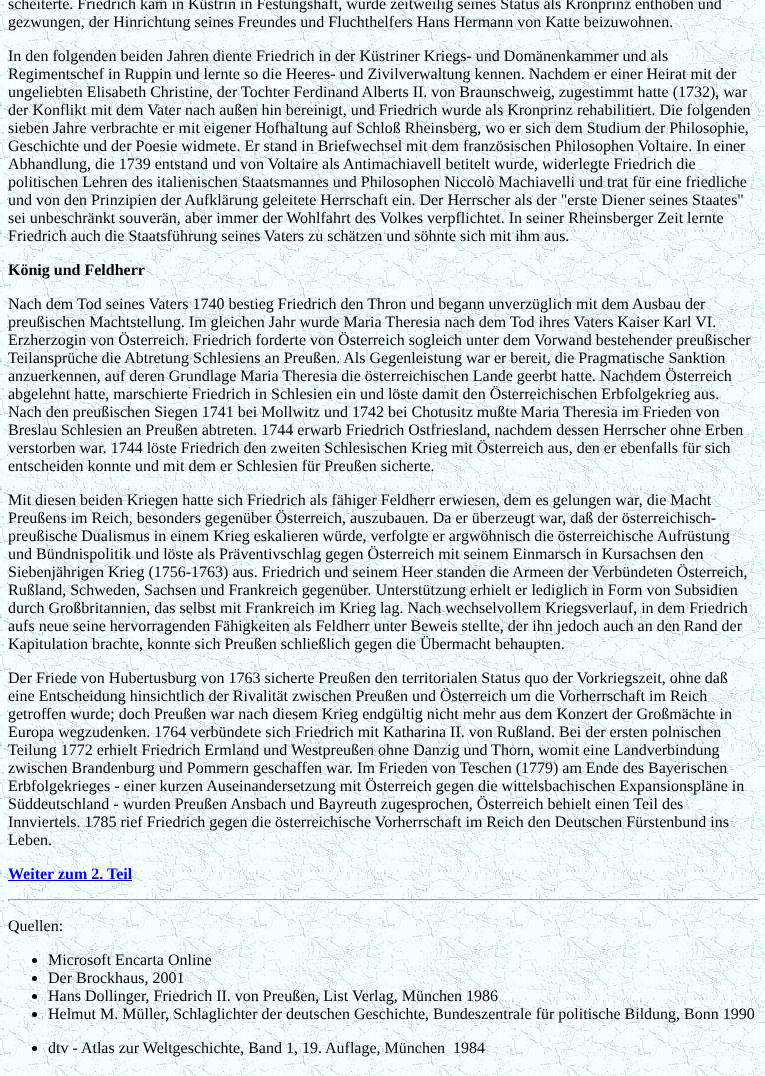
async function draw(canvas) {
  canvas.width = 765
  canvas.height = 1076
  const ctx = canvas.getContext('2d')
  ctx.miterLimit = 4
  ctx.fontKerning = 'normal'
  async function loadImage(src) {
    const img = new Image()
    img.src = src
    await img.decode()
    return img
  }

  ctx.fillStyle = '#fff'
  ctx.fillRect(0, 0, 765, 1076)
  ctx.drawImage(await loadImage('image0.png'), 0, 0, 765, 1076)
  ctx.font = '16px Liberation Serif'
  ctx.fillStyle = '#000'
  ctx.fillText('scheiterte. Friedrich kam in Küstrin in Festungshaft, wurde zeitweilig seines Status als Kronprinz enthoben und', 8, 9)
  ctx.fillText('gezwungen, der Hinrichtung seines Freundes und Fluchthelfers Hans Hermann von Katte beizuwohnen.', 8, 27)
  ctx.fillText('In den folgenden beiden Jahren diente Friedrich in der Küstriner Kriegs- und Domänenkammer und als', 8, 61)
  ctx.fillText('Regimentschef in Ruppin und lernte so die Heeres- und Zivilverwaltung kennen. Nachdem er einer Heirat mit der', 8, 79)
  ctx.fillText('ungeliebten Elisabeth Christine, der Tochter Ferdinand Alberts II. von Braunschweig, zugestimmt hatte (1732), war', 8, 97)
  ctx.fillText('der Konflikt mit dem Vater nach außen hin bereinigt, und Friedrich wurde als Kronprinz rehabilitiert. Die folgenden', 8, 115)
  ctx.fillText('sieben Jahre verbrachte er mit eigener Hofhaltung auf Schloß Rheinsberg, wo er sich dem Studium der Philosophie,', 8, 133)
  ctx.fillText('Geschichte und der Poesie widmete. Er stand in Briefwechsel mit dem französischen Philosophen Voltaire. In einer', 8, 151)
  ctx.fillText('Abhandlung, die 1739 entstand und von Voltaire als Antimachiavell betitelt wurde, widerlegte Friedrich die', 8, 169)
  ctx.fillText('politischen Lehren des italienischen Staatsmannes und Philosophen Niccolò Machiavelli und trat für eine friedliche', 8, 187)
  ctx.fillText('und von den Prinzipien der Aufklärung geleitete Herrschaft ein. Der Herrscher als der "erste Diener seines Staates"', 8, 205)
  ctx.fillText('sei unbeschränkt souverän, aber immer der Wohlfahrt des Volkes verpflichtet. In seiner Rheinsberger Zeit lernte', 8, 223)
  ctx.fillText('Friedrich auch die Staatsführung seines Vaters zu schätzen und söhnte sich mit ihm aus.', 8, 241)
  ctx.font = 'bold 16px Liberation Serif'
  ctx.fillText('König und Feldherr', 8, 275)
  ctx.font = '16px Liberation Serif'
  ctx.fillText('Nach dem Tod seines Vaters 1740 bestieg Friedrich den Thron und begann unverzüglich mit dem Ausbau der', 8, 309)
  ctx.fillText('preußischen Machtstellung. Im gleichen Jahr wurde Maria Theresia nach dem Tod ihres Vaters Kaiser Karl VI.', 8, 327)
  ctx.fillText('Erzherzogin von Österreich. Friedrich forderte von Österreich sogleich unter dem Vorwand bestehender preußischer', 8, 345)
  ctx.fillText('Teilansprüche die Abtretung Schlesiens an Preußen. Als Gegenleistung war er bereit, die Pragmatische Sanktion', 8, 363)
  ctx.fillText('anzuerkennen, auf deren Grundlage Maria Theresia die österreichischen Lande geerbt hatte. Nachdem Österreich', 8, 381)
  ctx.fillText('abgelehnt hatte, marschierte Friedrich in Schlesien ein und löste damit den Österreichischen Erbfolgekrieg aus.', 8, 399)
  ctx.fillText('Nach den preußischen Siegen 1741 bei Mollwitz und 1742 bei Chotusitz mußte Maria Theresia im Frieden von', 8, 417)
  ctx.fillText('Breslau Schlesien an Preußen abtreten. 1744 erwarb Friedrich Ostfriesland, nachdem dessen Herrscher ohne Erben', 8, 435)
  ctx.fillText('verstorben war. 1744 löste Friedrich den zweiten Schlesischen Krieg mit Österreich aus, den er ebenfalls für sich', 8, 453)
  ctx.fillText('entscheiden konnte und mit dem er Schlesien für Preußen sicherte.', 8, 471)
  ctx.fillText('Mit diesen beiden Kriegen hatte sich Friedrich als fähiger Feldherr erwiesen, dem es gelungen war, die Macht', 8, 505)
  ctx.fillText('Preußens im Reich, besonders gegenüber Österreich, auszubauen. Da er überzeugt war, daß der österreichisch-', 8, 523)
  ctx.fillText('preußische Dualismus in einem Krieg eskalieren würde, verfolgte er argwöhnisch die österreichische Aufrüstung', 8, 541)
  ctx.fillText('und Bündnispolitik und löste als Präventivschlag gegen Österreich mit seinem Einmarsch in Kursachsen den', 8, 559)
  ctx.fillText('Siebenjährigen Krieg (1756-1763) aus. Friedrich und seinem Heer standen die Armeen der Verbündeten Österreich,', 8, 577)
  ctx.fillText('Rußland, Schweden, Sachsen und Frankreich gegenüber. Unterstützung erhielt er lediglich in Form von Subsidien', 8, 595)
  ctx.fillText('durch Großbritannien, das selbst mit Frankreich im Krieg lag. Nach wechselvollem Kriegsverlauf, in dem Friedrich', 8, 613)
  ctx.fillText('aufs neue seine hervorragenden Fähigkeiten als Feldherr unter Beweis stellte, der ihn jedoch auch an den Rand der', 8, 631)
  ctx.fillText('Kapitulation brachte, konnte sich Preußen schließlich gegen die Übermacht behaupten.', 8, 649)
  ctx.fillText('Der Friede von Hubertusburg von 1763 sicherte Preußen den territorialen Status quo der Vorkriegszeit, ohne daß', 8, 683)
  ctx.fillText('eine Entscheidung hinsichtlich der Rivalität zwischen Preußen und Österreich um die Vorherrschaft im Reich', 8, 701)
  ctx.fillText('getroffen wurde; doch Preußen war nach diesem Krieg endgültig nicht mehr aus dem Konzert der Großmächte in', 8, 719)
  ctx.fillText('Europa wegzudenken. 1764 verbündete sich Friedrich mit Katharina II. von Rußland. Bei der ersten polnischen', 8, 737)
  ctx.fillText('Teilung 1772 erhielt Friedrich Ermland und Westpreußen ohne Danzig und Thorn, womit eine Landverbindung', 8, 755)
  ctx.fillText('zwischen Brandenburg und Pommern geschaffen war. Im Frieden von Teschen (1779) am Ende des Bayerischen', 8, 773)
  ctx.fillText('Erbfolgekrieges - einer kurzen Auseinandersetzung mit Österreich gegen die wittelsbachischen Expansionspläne in', 8, 791)
  ctx.fillText('Süddeutschland - wurden Preußen Ansbach und Bayreuth zugesprochen, Österreich behielt einen Teil des', 8, 809)
  ctx.fillText('Innviertels. 1785 rief Friedrich gegen die österreichische Vorherrschaft im Reich den Deutschen Fürstenbund ins', 8, 827)
  ctx.fillText('Leben.', 8, 845)
  ctx.font = 'bold 16px Liberation Serif'
  ctx.fillStyle = '#00e'
  ctx.fillText('Weiter zum 2. Teil', 8, 879)
  ctx.fillRect(8, 880, 124, 1)
  ctx.fillStyle = '#9f9f9f'
  ctx.fillRect(8, 899, 751, 1)
  ctx.fillStyle = '#eee'
  ctx.fillRect(758, 899, 1, 2)
  ctx.fillRect(8, 900, 751, 1)
  ctx.fillStyle = '#9f9f9f'
  ctx.fillRect(8, 899, 1, 2)
  ctx.font = '16px Liberation Serif'
  ctx.fillStyle = '#000'
  ctx.fillText('Quellen:', 8, 931)
  ctx.beginPath()
  ctx.arc(34.5, 960.5, 2.5, 0, 2 * Math.PI)
  ctx.fill()
  ctx.fillText('Microsoft Encarta Online', 48, 965)
  ctx.beginPath()
  ctx.arc(34.5, 978.5, 2.5, 0, 2 * Math.PI)
  ctx.fill()
  ctx.fillText('Der Brockhaus, 2001', 48, 983)
  ctx.beginPath()
  ctx.arc(34.5, 996.5, 2.5, 0, 2 * Math.PI)
  ctx.fill()
  ctx.fillText('Hans Dollinger, Friedrich II. von Preußen, List Verlag, München 1986', 48, 1001)
  ctx.beginPath()
  ctx.arc(34.5, 1014.5, 2.5, 0, 2 * Math.PI)
  ctx.fill()
  ctx.fillText('Helmut M. Müller, Schlaglichter der deutschen Geschichte, Bundeszentrale für politische Bildung, Bonn 1990', 48, 1019)
  ctx.beginPath()
  ctx.arc(34.5, 1048.5, 2.5, 0, 2 * Math.PI)
  ctx.fill()
  ctx.fillText('dtv - Atlas zur Weltgeschichte, Band 1, 19. Auflage, München  1984', 48, 1053)
}

draw(document.querySelector('canvas'))
